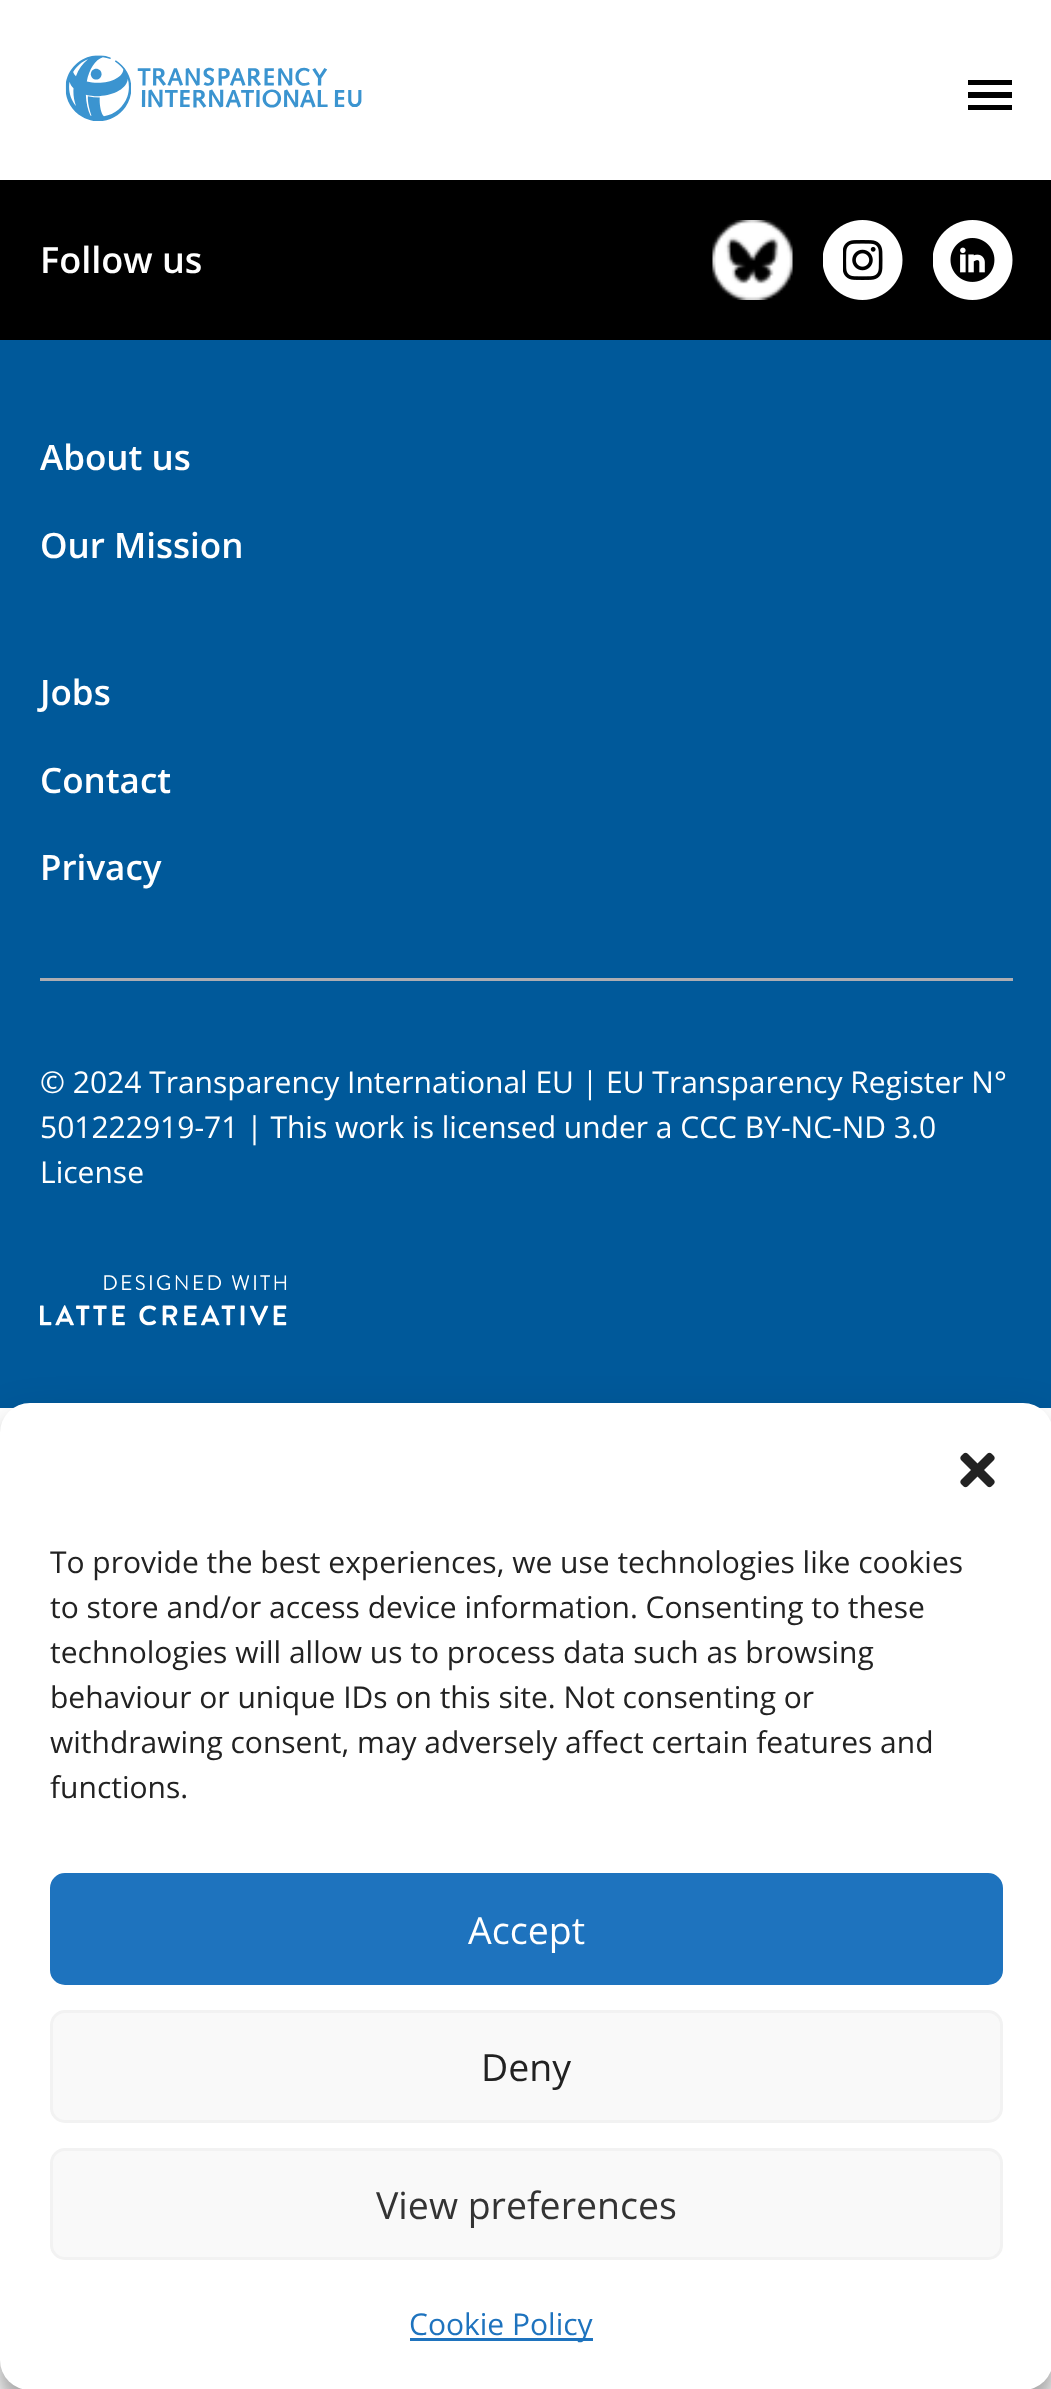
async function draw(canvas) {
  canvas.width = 1051
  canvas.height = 2389
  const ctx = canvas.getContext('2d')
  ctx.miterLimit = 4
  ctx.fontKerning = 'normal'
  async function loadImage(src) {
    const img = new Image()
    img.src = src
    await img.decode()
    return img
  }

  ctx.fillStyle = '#fff'
  ctx.fillRect(0, 0, 1051, 2389)
  ctx.drawImage(await loadImage('image0.png'), 65, 55, 297, 66)
  ctx.fillStyle = '#000'
  ctx.beginPath()
  ctx.moveTo(968, 110)
  ctx.lineTo(1012, 110)
  ctx.lineTo(1012, 105)
  ctx.lineTo(968, 105)
  ctx.closePath()
  ctx.moveTo(968, 98)
  ctx.lineTo(1012, 98)
  ctx.lineTo(1012, 92)
  ctx.lineTo(968, 92)
  ctx.closePath()
  ctx.moveTo(968, 80)
  ctx.lineTo(968, 85)
  ctx.lineTo(1012, 85)
  ctx.lineTo(1012, 80)
  ctx.closePath()
  ctx.fill()
  ctx.fillStyle = '#00599a'
  ctx.fillRect(0, 340, 1051, 1068)
  ctx.fillStyle = '#000'
  ctx.fillRect(0, 180, 1051, 160)
  ctx.font = '600 36px Open Sans'
  ctx.fillStyle = '#fff'
  ctx.fillText('Follow us', 40, 273)
  ctx.drawImage(await loadImage('image1.png'), 712, 220, 81, 80)
  ctx.drawImage(await loadImage('image2.png'), 823, 220, 80, 80)
  ctx.drawImage(await loadImage('image3.png'), 933, 220, 80, 80)
  ctx.font = '600 35px Open Sans'
  ctx.fillText('About us', 40, 470)
  ctx.fillText('Our Mission', 40, 558)
  ctx.fillText('Jobs', 40, 705)
  ctx.fillText('Contact', 40, 793)
  ctx.fillText('Privacy', 40, 880)
  ctx.fillStyle = '#adadb2'
  ctx.fillRect(40, 978, 973, 3)
  ctx.font = '30px Open Sans'
  ctx.fillStyle = '#fff'
  ctx.fillText('© 2024 Transparency International EU | EU Transparency Register N°', 40, 1093)
  ctx.fillText('501222919-71 | This work is licensed under a CCC BY-NC-ND 3.0', 40, 1138)
  ctx.fillText('License', 40, 1183)
  ctx.drawImage(await loadImage('image4.png'), 40, 1275, 247, 51)
  ctx.fillStyle = '#0000003b'
  ctx.filter = 'blur(7.5px)'
  ctx.beginPath()
  ctx.roundRect(0, 1418, 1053, 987, 30)
  ctx.fill()
  ctx.filter = 'none'
  ctx.fillStyle = '#00000030'
  ctx.filter = 'blur(25px)'
  ctx.beginPath()
  ctx.roundRect(0, 1428, 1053, 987, 30)
  ctx.fill()
  ctx.filter = 'none'
  ctx.fillStyle = '#fff'
  ctx.beginPath()
  ctx.roundRect(0, 1403, 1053, 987, 30)
  ctx.fill()
  ctx.drawImage(await loadImage('image5.png'), 960, 1452, 35, 36)
  ctx.fillStyle = '#222'
  ctx.fillText('To provide the best experiences, we use technologies like cookies', 50, 1573)
  ctx.fillText('to store and/or access device information. Consenting to these', 50, 1618)
  ctx.fillText('technologies will allow us to process data such as browsing', 50, 1663)
  ctx.fillText('behaviour or unique IDs on this site. Not consenting or', 50, 1708)
  ctx.fillText('withdrawing consent, may adversely affect certain features and', 50, 1753)
  ctx.fillText('functions.', 50, 1798)
  ctx.fillStyle = '#1e73be'
  ctx.beginPath()
  ctx.roundRect(51.5, 1874.5, 950, 109, 13.5)
  ctx.fill()
  ctx.strokeStyle = '#1e73be'
  ctx.lineWidth = 3
  ctx.stroke()
  ctx.font = '37.5px Open Sans'
  ctx.fillStyle = '#fff'
  ctx.fillText('Accept', 468, 1944)
  ctx.fillStyle = '#f9f9f9'
  ctx.beginPath()
  ctx.roundRect(51.5, 2011.5, 950, 110, 13.5)
  ctx.fill()
  ctx.strokeStyle = '#f2f2f2'
  ctx.stroke()
  ctx.fillStyle = '#222'
  ctx.fillText('Deny', 481, 2081)
  ctx.fillStyle = '#f9f9f9'
  ctx.beginPath()
  ctx.roundRect(51.5, 2149.5, 950, 109, 13.5)
  ctx.fill()
  ctx.stroke()
  ctx.fillStyle = '#333'
  ctx.fillText('View preferences', 376, 2219)
  ctx.fillStyle = '#1e73be'
  ctx.fillRect(410, 2338, 183, 3)
  ctx.font = '30px Open Sans'
  ctx.fillText('Cookie Policy', 409, 2335)
}

draw(document.querySelector('canvas'))
